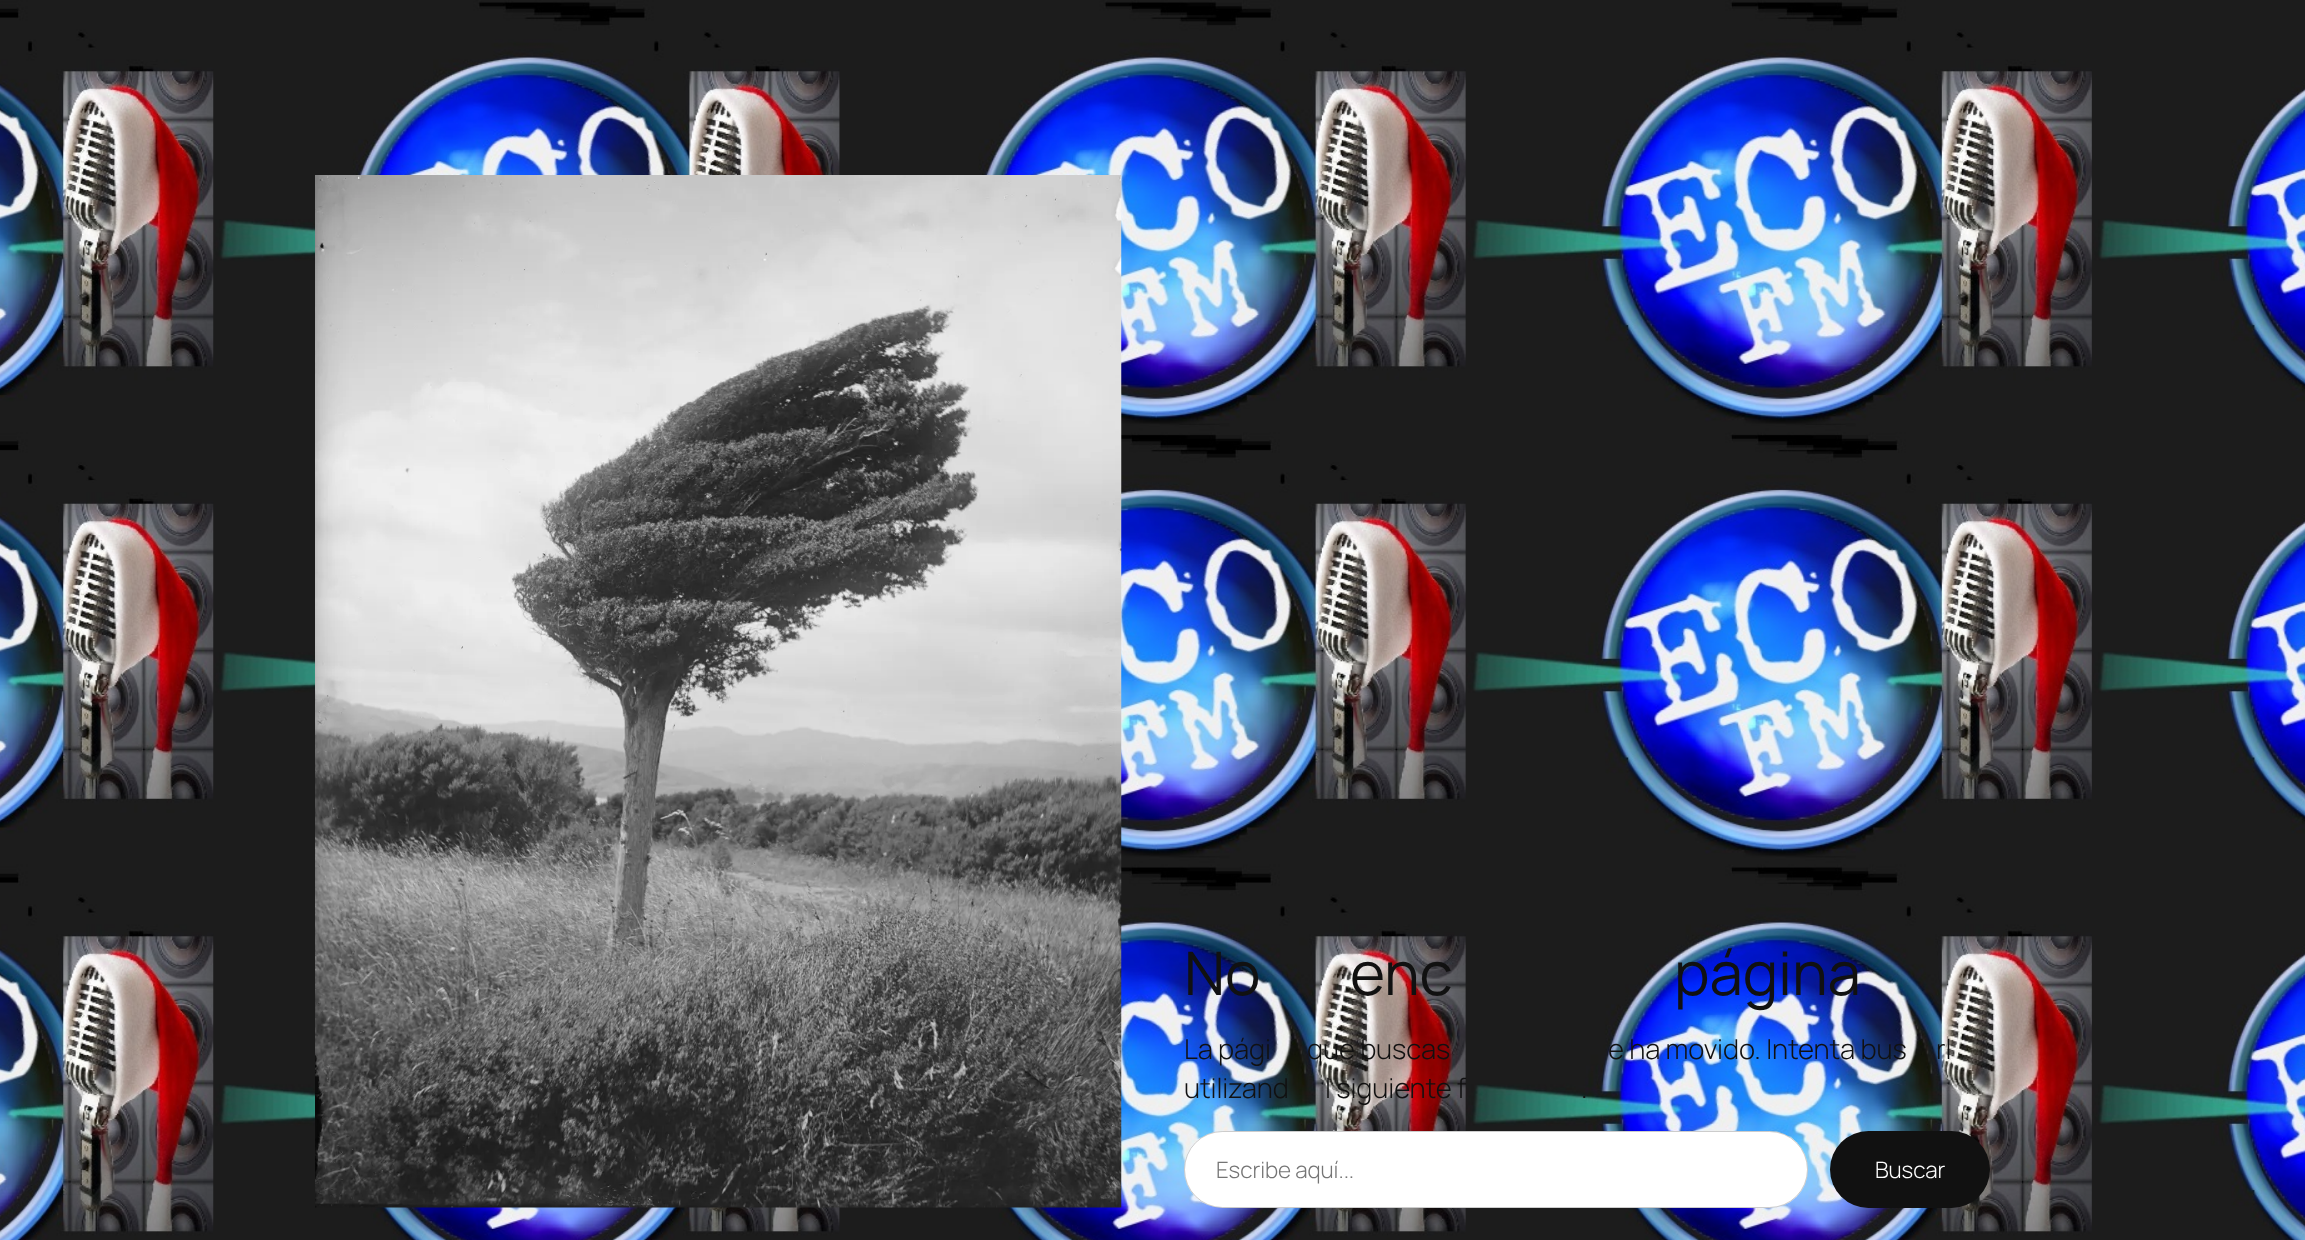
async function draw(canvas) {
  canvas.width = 2305
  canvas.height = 1240
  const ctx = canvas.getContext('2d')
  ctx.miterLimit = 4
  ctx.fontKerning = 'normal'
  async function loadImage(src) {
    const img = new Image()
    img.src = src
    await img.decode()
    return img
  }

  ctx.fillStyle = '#fff'
  ctx.fillRect(0, 0, 2305, 1240)
  ctx.drawImage(await loadImage('image0.png'), 0, 0, 2305, 1240)
  ctx.drawImage(await loadImage('image1.png'), 315, 175, 807, 1033)
  ctx.letterSpacing = '-0.1px'
  ctx.font = '60px Manrope'
  ctx.fillStyle = '#111'
  ctx.fillText('No', 1184, 995)
  ctx.fillText('enc', 1350, 995)
  ctx.fillText('página', 1674, 995)
  ctx.font = '300 27.5px Manrope'
  ctx.fillText('La pági', 1184, 1059)
  ctx.fillText('que buscas', 1307, 1059)
  ctx.fillText('e ha movido. Intenta bus', 1608, 1059)
  ctx.fillText('rl', 1936, 1059)
  ctx.fillText('utilizand', 1184, 1098)
  ctx.fillText('l siguiente f', 1325, 1098)
  ctx.fillText('.', 1581, 1098)
  ctx.fillStyle = '#fff'
  ctx.beginPath()
  ctx.roundRect(1184, 1131, 624, 77, 38.5)
  ctx.fill()
  ctx.beginPath()
  ctx.roundRect(1184.5, 1131.5, 623, 76, 38)
  ctx.strokeStyle = '#00000033'
  ctx.stroke()
  ctx.font = '300 22.5px Manrope'
  ctx.fillStyle = '#757575'
  ctx.fillText('Escribe aquí...', 1216, 1178)
  ctx.fillStyle = '#111'
  ctx.beginPath()
  ctx.roundRect(1830, 1131, 160, 77, 38.5)
  ctx.fill()
  ctx.fillStyle = '#fff'
  ctx.fillText('Buscar', 1875, 1178)
}

draw(document.querySelector('canvas'))
